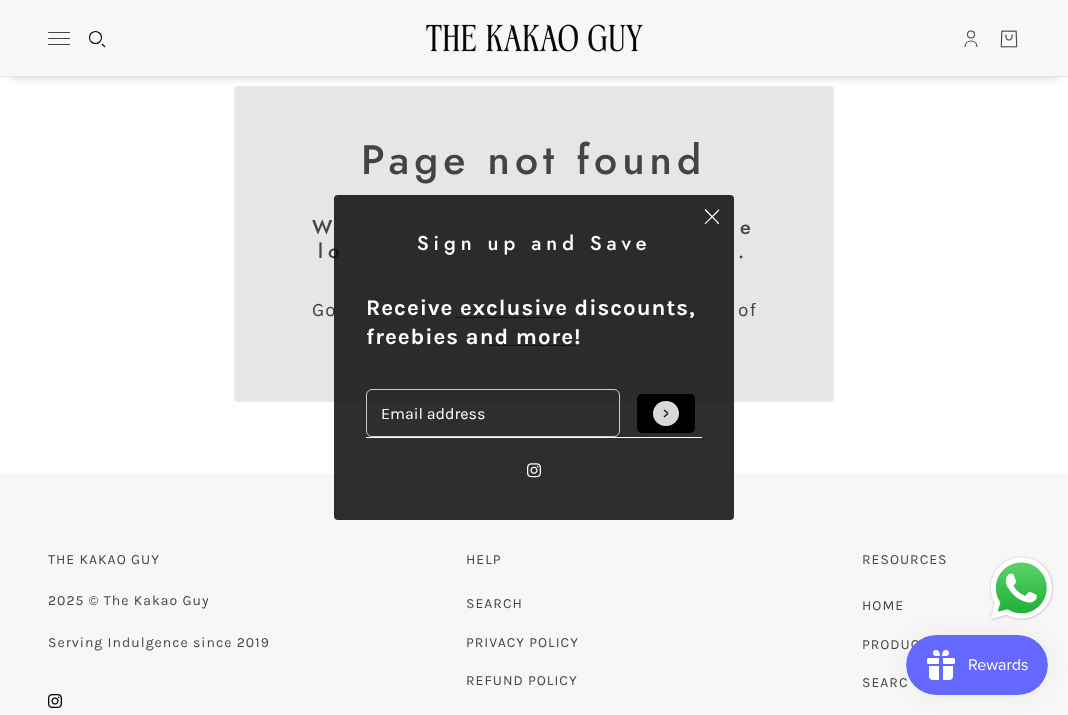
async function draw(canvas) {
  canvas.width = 1068
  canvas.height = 715
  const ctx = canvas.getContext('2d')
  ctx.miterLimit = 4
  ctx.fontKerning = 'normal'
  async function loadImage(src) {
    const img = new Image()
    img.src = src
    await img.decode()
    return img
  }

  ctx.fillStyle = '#fff'
  ctx.fillRect(0, 0, 1068, 715)
  ctx.fillStyle = '#e6e6e6'
  ctx.beginPath()
  ctx.roundRect(234.5, 86.5, 599, 315, 2.5)
  ctx.fill()
  ctx.strokeStyle = '#eaeaea'
  ctx.stroke()
  ctx.fillStyle = '#00000033'
  ctx.filter = 'blur(5px)'
  ctx.beginPath()
  ctx.rect(10, 20, 1048, 57)
  ctx.fill()
  ctx.filter = 'none'
  ctx.fillStyle = '#f7f7f7'
  ctx.fillRect(0, 0, 1068, 76)
  ctx.fillStyle = '#444'
  ctx.beginPath()
  ctx.roundRect(48, 32, 22, 1, 0.5)
  ctx.fill()
  ctx.beginPath()
  ctx.roundRect(48, 38, 22, 1, 0.5)
  ctx.fill()
  ctx.beginPath()
  ctx.roundRect(48, 44, 22, 1, 0.5)
  ctx.fill()
  ctx.beginPath()
  ctx.arc(95.5, 37.5, 6, 0, 2 * Math.PI)
  ctx.strokeStyle = '#000'
  ctx.lineWidth = 1.1
  ctx.stroke()
  ctx.beginPath()
  ctx.moveTo(102, 44)
  ctx.lineTo(105, 47)
  ctx.stroke()
  ctx.drawImage(await loadImage('image0.png'), 426, 24, 217, 28)
  ctx.beginPath()
  ctx.arc(971, 34.5, 3.5, 0, 2 * Math.PI)
  ctx.strokeStyle = '#444'
  ctx.stroke()
  ctx.beginPath()
  ctx.moveTo(965, 47)
  ctx.bezierCurveTo(965, 39, 977, 39, 977, 47)
  ctx.stroke()
  ctx.drawImage(await loadImage('image1.png'), 1000, 30, 18, 18)
  ctx.fillStyle = '#e5e5e5'
  ctx.fillRect(0, 76, 1068, 1)
  ctx.letterSpacing = '5px'
  ctx.font = '500 41px Jost'
  ctx.fillStyle = '#444'
  ctx.fillText('Page not found', 361, 174)
  ctx.font = '500 20px Jost'
  ctx.fillText('W', 312, 234)
  ctx.fillText('e', 740, 234)
  ctx.fillText('lo', 318, 258)
  ctx.fillText('.', 738, 258)
  ctx.letterSpacing = '1px'
  ctx.font = '19px Karla'
  ctx.fillText('Go', 312, 316)
  ctx.fillText('of', 738, 316)
  ctx.fillRect(456, 317, 106, 1)
  ctx.fillRect(489, 345, 86, 1)
  ctx.fillStyle = '#f7f7f7'
  ctx.fillRect(0, 474, 1068, 241)
  ctx.fillStyle = '#090909d9'
  ctx.beginPath()
  ctx.roundRect(334, 195, 400, 325, 4)
  ctx.fill()
  ctx.fillStyle = '#fff'
  ctx.beginPath()
  ctx.moveTo(706, 209.5)
  ctx.lineTo(719, 223)
  ctx.lineTo(719, 223.5)
  ctx.bezierCurveTo(718.5, 225, 717, 223, 716, 221.5)
  ctx.lineTo(705, 210.5)
  ctx.bezierCurveTo(704.5, 210, 705.5, 209, 706, 209.5)
  ctx.closePath()
  ctx.fill()
  ctx.beginPath()
  ctx.moveTo(705, 223)
  ctx.lineTo(718.5, 209.5)
  ctx.lineTo(719, 209.5)
  ctx.bezierCurveTo(720, 210.5, 718, 211.5, 717, 213)
  ctx.lineTo(705.5, 224)
  ctx.bezierCurveTo(705, 224.5, 704.5, 223.5, 705, 223)
  ctx.closePath()
  ctx.fill()
  ctx.letterSpacing = '5px'
  ctx.font = '500 20px Jost'
  ctx.fillText('Sign up and Save', 417, 250)
  ctx.letterSpacing = '1px'
  ctx.font = 'bold 22.25px Karla'
  ctx.fillText('Receive exclusive discounts,', 366, 315)
  ctx.fillText('freebies and more!', 366, 344)
  ctx.fillRect(366, 437, 336, 1)
  ctx.beginPath()
  ctx.roundRect(366.5, 389.5, 253, 47, 5.5)
  ctx.strokeStyle = '#ccc'
  ctx.lineWidth = 1
  ctx.stroke()
  ctx.letterSpacing = '0px'
  ctx.font = '16px Karla'
  ctx.fillText('Email address', 381, 419)
  ctx.fillStyle = '#000'
  ctx.beginPath()
  ctx.roundRect(637, 394, 58, 39, 5)
  ctx.fill()
  ctx.fillStyle = '#d9d9d9'
  ctx.beginPath()
  ctx.roundRect(653, 401, 26, 25, 12.5)
  ctx.fill()
  ctx.fillStyle = '#1d1d1d'
  ctx.beginPath()
  ctx.moveTo(663.5, 416.5)
  ctx.lineTo(667.5, 413)
  ctx.lineTo(668.5, 414)
  ctx.lineTo(664.5, 417.5)
  ctx.closePath()
  ctx.fill()
  ctx.beginPath()
  ctx.moveTo(664.5, 409.5)
  ctx.lineTo(668.5, 413)
  ctx.lineTo(667.5, 414)
  ctx.lineTo(663.5, 410.5)
  ctx.closePath()
  ctx.fill()
  ctx.drawImage(await loadImage('image2.png'), 527, 463, 14, 15)
  ctx.letterSpacing = '1px'
  ctx.font = '14px Karla'
  ctx.fillStyle = '#444'
  ctx.fillText('THE KAKAO GUY', 48, 564)
  ctx.fillText('2025 © The Kakao Guy', 48, 605)
  ctx.fillText('Serving Indulgence since 2019', 48, 647)
  ctx.drawImage(await loadImage('image3.png'), 48, 694, 14, 14)
  ctx.fillText('HELP', 466, 564)
  ctx.fillText('SEARCH', 466, 608)
  ctx.fillText('PRIVACY POLICY', 466, 647)
  ctx.fillText('REFUND POLICY', 466, 685)
  ctx.fillText('RESOURCES', 862, 564)
  ctx.fillText('HOME', 862, 610)
  ctx.fillText('PRODUC', 862, 649)
  ctx.fillText('SEARC', 862, 687)
  ctx.drawImage(await loadImage('image4.png'), 989, 556, 65, 65)
  ctx.fillStyle = '#0000000d'
  ctx.filter = 'blur(12.5px)'
  ctx.beginPath()
  ctx.roundRect(906, 635, 142, 60, 30)
  ctx.fill()
  ctx.filter = 'none'
  ctx.drawImage(await loadImage('image5.png'), 906, 635, 142, 60)
}

draw(document.querySelector('canvas'))
